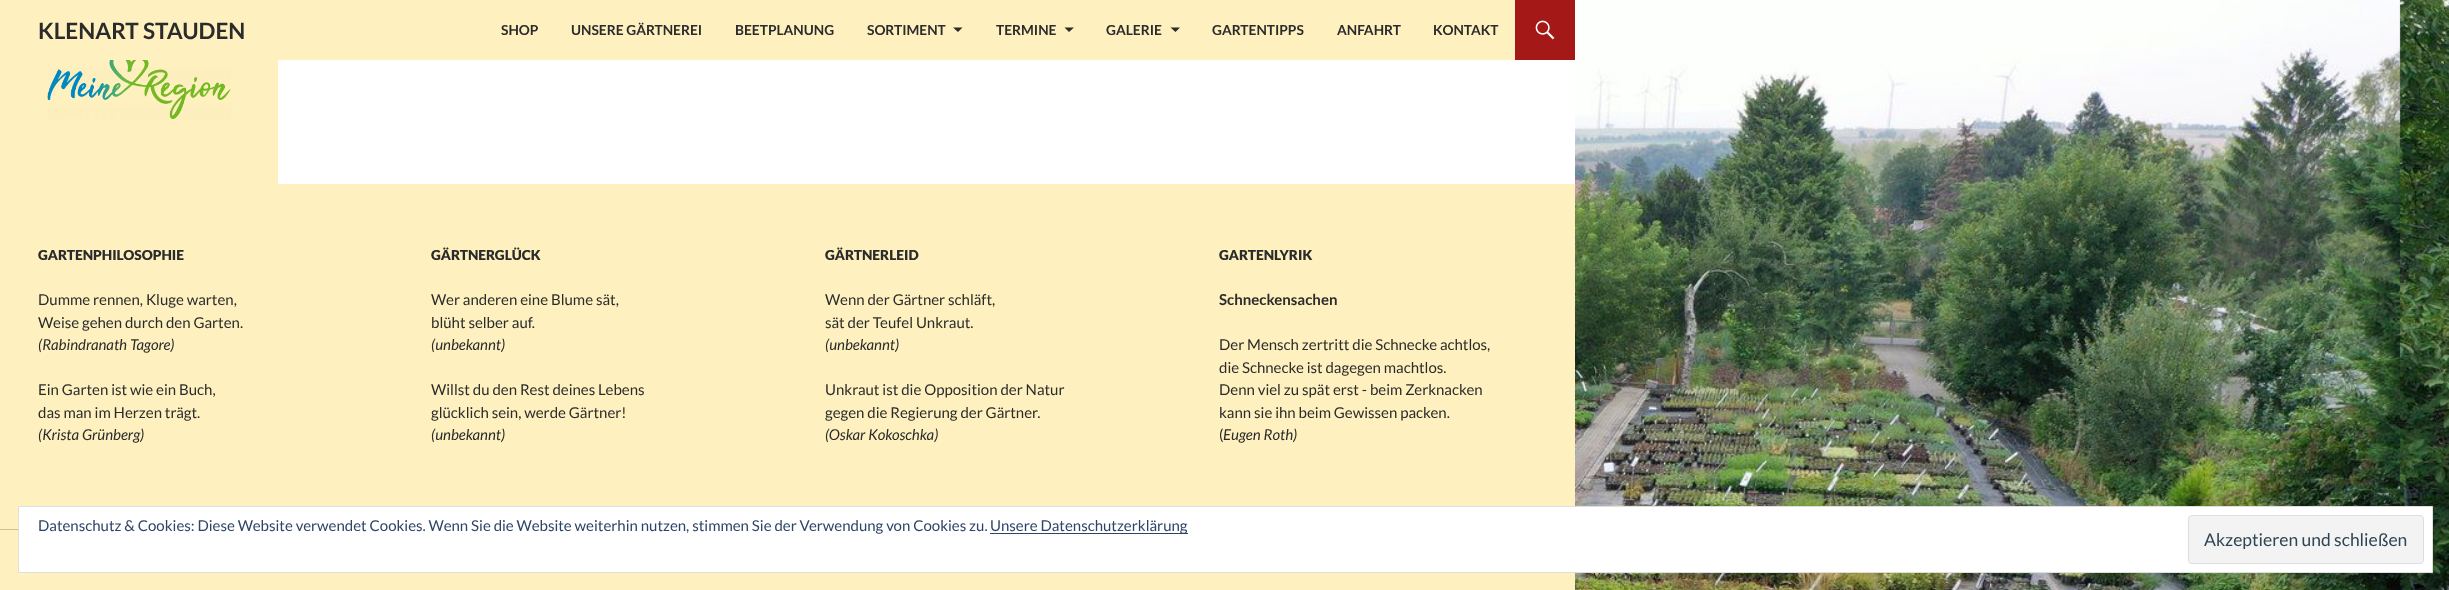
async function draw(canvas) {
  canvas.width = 2449
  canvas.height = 590
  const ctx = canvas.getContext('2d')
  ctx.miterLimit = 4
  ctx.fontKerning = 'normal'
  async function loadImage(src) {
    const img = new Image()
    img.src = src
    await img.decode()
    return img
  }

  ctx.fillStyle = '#fff'
  ctx.fillRect(0, 0, 2449, 590)
  ctx.drawImage(await loadImage('image0.png'), 1575, 0, 874, 590)
  ctx.fillStyle = '#fef1bf'
  ctx.fillRect(0, 0, 1515, 60)
  ctx.font = 'bold 22.5px Lato'
  ctx.fillStyle = '#2b2b2b'
  ctx.fillText('KLENART STAUDEN', 38, 39)
  ctx.font = 'bold 13.75px Lato'
  ctx.fillText('SHOP', 501, 35)
  ctx.fillText('UNSERE GÄRTNEREI', 571, 35)
  ctx.fillText('BEETPLANUNG', 735, 35)
  ctx.fillText('SORTIMENT', 867, 35)
  ctx.beginPath()
  ctx.moveTo(953, 27.5)
  ctx.lineTo(962.5, 27.5)
  ctx.lineTo(958, 32)
  ctx.closePath()
  ctx.fill()
  ctx.fillText('TERMINE', 996, 35)
  ctx.beginPath()
  ctx.moveTo(1064.5, 27.5)
  ctx.lineTo(1074, 27.5)
  ctx.lineTo(1069, 32)
  ctx.closePath()
  ctx.fill()
  ctx.fillText('GALERIE', 1106, 35)
  ctx.beginPath()
  ctx.moveTo(1170.5, 27.5)
  ctx.lineTo(1180, 27.5)
  ctx.lineTo(1175.5, 32)
  ctx.closePath()
  ctx.fill()
  ctx.fillText('GARTENTIPPS', 1212, 35)
  ctx.fillText('ANFAHRT', 1337, 35)
  ctx.fillText('KONTAKT', 1433, 35)
  ctx.fillStyle = '#a41918'
  ctx.fillRect(1515, 0, 60, 60)
  ctx.drawImage(await loadImage('image1.png'), 1535, 20, 20, 20)
  ctx.fillStyle = '#fef1bf'
  ctx.fillRect(0, 60, 278, 124)
  ctx.drawImage(await loadImage('image2.png'), 47, 60, 184, 60)
  ctx.fillRect(0, 184, 1575, 406)
  ctx.font = '900 13.75px Lato'
  ctx.fillStyle = '#2b2b2b'
  ctx.fillText('GARTENPHILOSOPHIE', 38, 260)
  ctx.font = '15px Lato'
  ctx.fillText('Dumme rennen, Kluge warten,', 38, 305)
  ctx.fillText('Weise gehen durch den Garten.', 38, 328)
  ctx.font = 'italic 15px Lato'
  ctx.fillText('(Rabindranath Tagore)', 38, 350)
  ctx.font = '15px Lato'
  ctx.fillText('Ein Garten ist wie ein Buch,', 38, 395)
  ctx.fillText('das man im Herzen trägt.', 38, 418)
  ctx.font = 'italic 15px Lato'
  ctx.fillText('(Krista Grünberg)', 38, 440)
  ctx.font = '900 13.75px Lato'
  ctx.fillText('GÄRTNERGLÜCK', 431, 260)
  ctx.font = '15px Lato'
  ctx.fillText('Wer anderen eine Blume sät,', 431, 305)
  ctx.fillText('blüht selber auf.', 431, 328)
  ctx.font = 'italic 15px Lato'
  ctx.fillText('(unbekannt)', 431, 350)
  ctx.font = '15px Lato'
  ctx.fillText('Willst du den Rest deines Lebens', 431, 395)
  ctx.fillText('glücklich sein, werde Gärtner!', 431, 418)
  ctx.font = 'italic 15px Lato'
  ctx.fillText('(unbekannt)', 431, 440)
  ctx.font = '900 13.75px Lato'
  ctx.fillText('GÄRTNERLEID', 825, 260)
  ctx.font = '15px Lato'
  ctx.fillText('Wenn der Gärtner schläft,', 825, 305)
  ctx.fillText('sät der Teufel Unkraut.', 825, 328)
  ctx.font = 'italic 15px Lato'
  ctx.fillText('(unbekannt)', 825, 350)
  ctx.font = '15px Lato'
  ctx.fillText('Unkraut ist die Opposition der Natur', 825, 395)
  ctx.fillText('gegen die Regierung der Gärtner.', 825, 418)
  ctx.font = 'italic 15px Lato'
  ctx.fillText('(Oskar Kokoschka)', 825, 440)
  ctx.font = '900 13.75px Lato'
  ctx.fillText('GARTENLYRIK', 1219, 260)
  ctx.font = 'bold 15px Lato'
  ctx.fillText('Schneckensachen', 1219, 305)
  ctx.font = '15px Lato'
  ctx.fillText('Der Mensch zertritt die Schnecke achtlos,', 1219, 350)
  ctx.fillText('die Schnecke ist dagegen machtlos.', 1219, 373)
  ctx.fillText('Denn viel zu spät erst - beim Zerknacken', 1219, 395)
  ctx.fillText('kann sie ihn beim Gewissen packen.', 1219, 418)
  ctx.fillText('(', 1219, 440)
  ctx.font = 'italic 15px Lato'
  ctx.fillText('Eugen Roth)', 1223, 440)
  ctx.fillStyle = '#cbc199'
  ctx.fillRect(0, 529, 18, 1)
  ctx.fillStyle = '#fff'
  ctx.beginPath()
  ctx.rect(18.5, 506.5, 2414, 66)
  ctx.fill()
  ctx.strokeStyle = '#dedede'
  ctx.stroke()
  ctx.font = '15px Lato'
  ctx.fillStyle = '#2e4467'
  ctx.fillText('Datenschutz & Cookies: Diese Website verwendet Cookies. Wenn Sie die Website weiterhin nutzen, stimmen Sie der Verwendung von Cookies zu.', 38, 531)
  ctx.fillRect(990, 533, 198, 1)
  ctx.fillText('Unsere Datenschutzerklärung', 990, 531)
  ctx.fillStyle = '#f3f3f3'
  ctx.beginPath()
  ctx.roundRect(2188.5, 515.5, 235, 48, 3.5)
  ctx.fill()
  ctx.stroke()
  ctx.font = '17.5px Lato'
  ctx.fillStyle = '#2e4453'
  ctx.fillText('Akzeptieren und schließen', 2204, 546)
}

draw(document.querySelector('canvas'))
